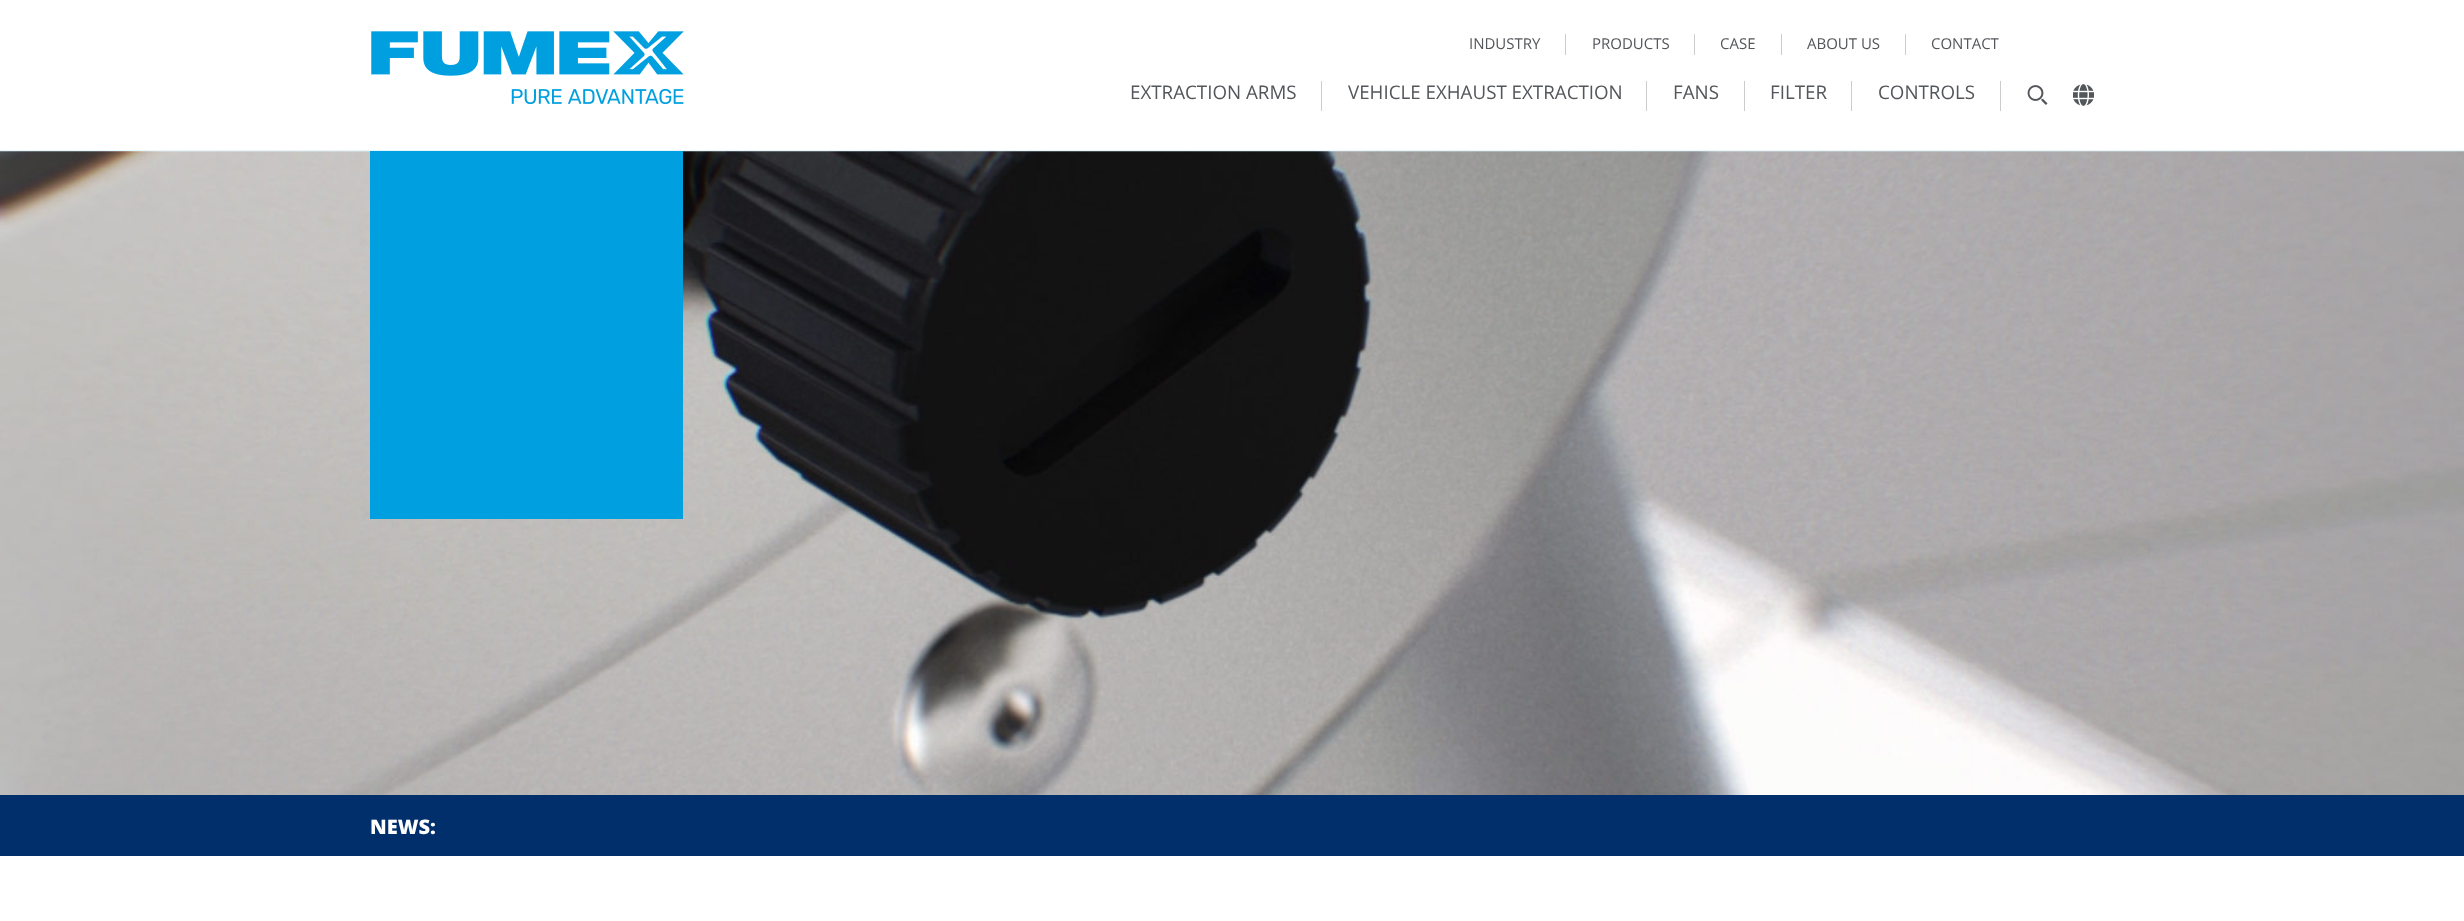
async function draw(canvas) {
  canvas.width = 2464
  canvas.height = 921
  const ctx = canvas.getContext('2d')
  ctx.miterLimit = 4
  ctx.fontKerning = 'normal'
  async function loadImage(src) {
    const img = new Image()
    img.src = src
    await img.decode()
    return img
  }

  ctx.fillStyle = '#fff'
  ctx.fillRect(0, 0, 2464, 921)
  ctx.drawImage(await loadImage('image0.png'), 371, 31, 313, 73)
  ctx.font = '15px Open Sans'
  ctx.fillStyle = '#53565a'
  ctx.fillText('INDUSTRY', 1469, 49)
  ctx.fillStyle = '#ccc'
  ctx.fillRect(1565, 34, 1, 21)
  ctx.fillStyle = '#53565a'
  ctx.fillText('PRODUCTS', 1592, 49)
  ctx.fillStyle = '#ccc'
  ctx.fillRect(1694, 34, 1, 21)
  ctx.fillStyle = '#53565a'
  ctx.fillText('CASE', 1720, 49)
  ctx.fillStyle = '#ccc'
  ctx.fillRect(1781, 34, 1, 21)
  ctx.fillStyle = '#53565a'
  ctx.fillText('ABOUT US', 1807, 49)
  ctx.fillStyle = '#ccc'
  ctx.fillRect(1905, 34, 1, 21)
  ctx.fillStyle = '#53565a'
  ctx.fillText('CONTACT', 1931, 49)
  ctx.fillStyle = '#ccc'
  ctx.fillRect(1321, 81, 1, 30)
  ctx.font = '18.75px Open Sans'
  ctx.fillStyle = '#53565a'
  ctx.fillText('EXTRACTION ARMS', 1130, 99)
  ctx.fillStyle = '#ccc'
  ctx.fillRect(1646, 81, 1, 30)
  ctx.fillStyle = '#53565a'
  ctx.fillText('VEHICLE EXHAUST EXTRACTION', 1348, 99)
  ctx.fillStyle = '#ccc'
  ctx.fillRect(1744, 81, 1, 30)
  ctx.fillStyle = '#53565a'
  ctx.fillText('FANS', 1673, 99)
  ctx.fillStyle = '#ccc'
  ctx.fillRect(1851, 81, 1, 30)
  ctx.fillStyle = '#53565a'
  ctx.fillText('FILTER', 1770, 99)
  ctx.fillStyle = '#ccc'
  ctx.fillRect(2000, 81, 1, 30)
  ctx.fillStyle = '#53565a'
  ctx.fillText('CONTROLS', 1878, 99)
  ctx.drawImage(await loadImage('image1.png'), 2027, 85, 21, 20)
  ctx.drawImage(await loadImage('image2.png'), 2073, 84, 21, 22)
  ctx.fillStyle = '#e6f8ff'
  ctx.fillRect(0, 150, 2464, 1)
  ctx.drawImage(await loadImage('image3.png'), 0, 151, 2464, 644)
  ctx.fillStyle = '#009fdf'
  ctx.fillRect(370, 151, 313, 368)
  ctx.fillStyle = '#002f6c'
  ctx.fillRect(0, 795, 2464, 61)
  ctx.font = '800 20px Open Sans'
  ctx.fillStyle = '#fff'
  ctx.fillText('NEWS:', 370, 834)
}

draw(document.querySelector('canvas'))
